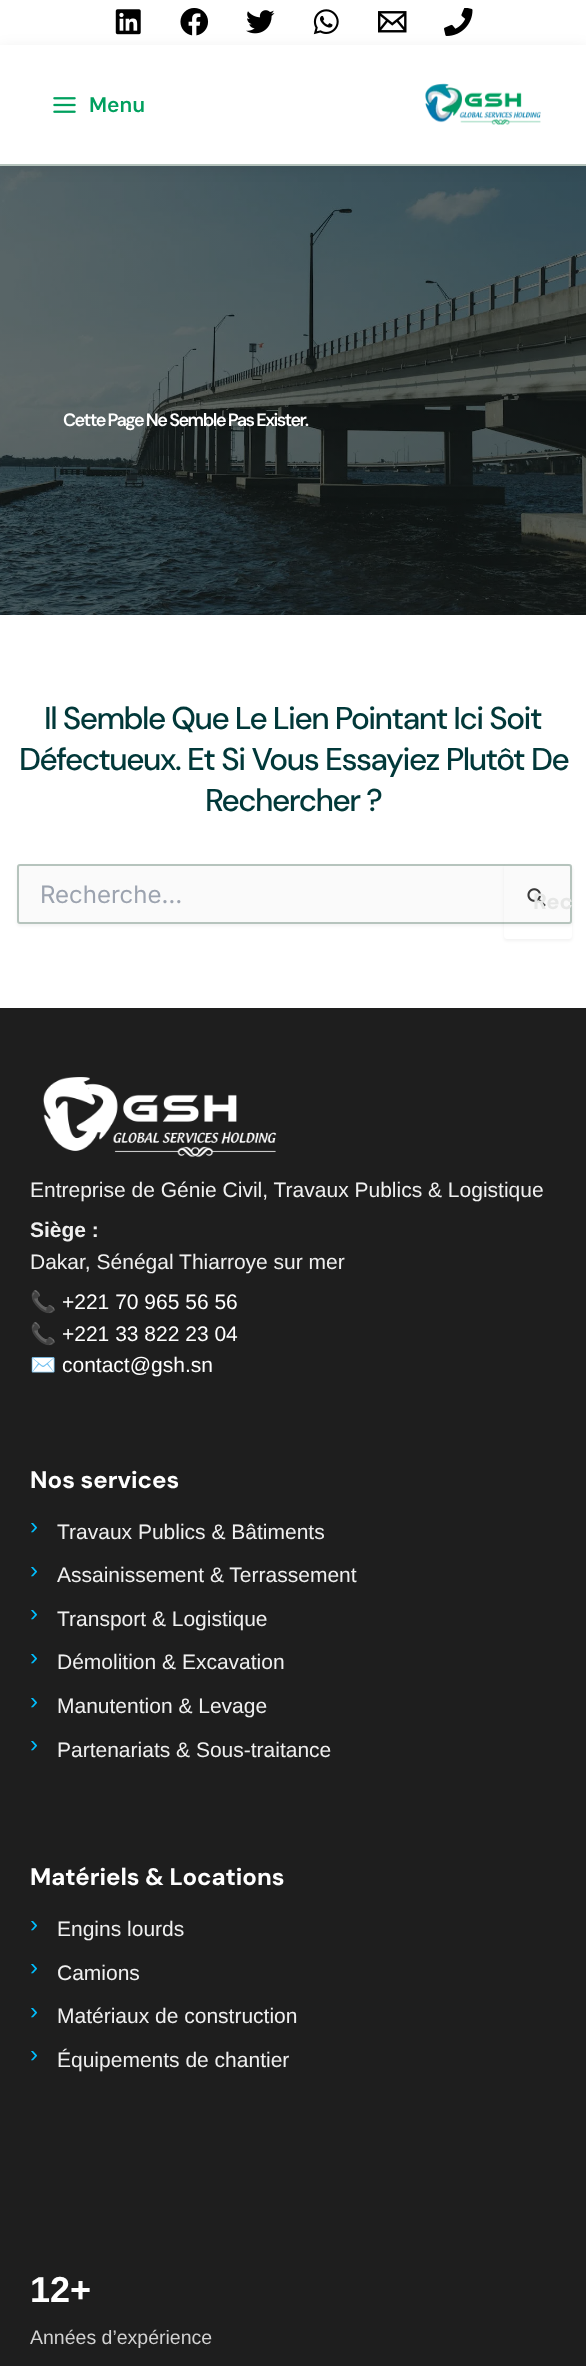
async function draw(canvas) {
  canvas.width = 586
  canvas.height = 2366
  const ctx = canvas.getContext('2d')
  ctx.miterLimit = 4
  ctx.fontKerning = 'normal'
  async function loadImage(src) {
    const img = new Image()
    img.src = src
    await img.decode()
    return img
  }

  ctx.fillStyle = '#fff'
  ctx.fillRect(0, 0, 586, 2366)
  ctx.drawImage(await loadImage('image0.png'), 115, 9, 26, 26)
  ctx.drawImage(await loadImage('image1.png'), 180, 8, 29, 28)
  ctx.drawImage(await loadImage('image2.png'), 246, 10, 29, 24)
  ctx.drawImage(await loadImage('image3.png'), 313, 9, 26, 26)
  ctx.drawImage(await loadImage('image4.png'), 378, 11, 29, 22)
  ctx.drawImage(await loadImage('image5.png'), 444, 8, 29, 28)
  ctx.drawImage(await loadImage('image8.png'), 0, 166, 586, 449)
  ctx.save()
  ctx.beginPath()
  ctx.moveTo(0, 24)
  ctx.lineTo(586, 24)
  ctx.lineTo(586, 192)
  ctx.lineTo(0, 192)
  ctx.closePath()
  ctx.moveTo(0, 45)
  ctx.lineTo(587, 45)
  ctx.lineTo(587, 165)
  ctx.lineTo(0, 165)
  ctx.closePath()
  ctx.clip('evenodd')
  ctx.fillStyle = '#00000014'
  ctx.filter = 'blur(7.5px)'
  ctx.beginPath()
  ctx.rect(0, 48, 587, 120)
  ctx.fill()
  ctx.filter = 'none'
  ctx.restore()
  ctx.fillStyle = '#b6c4bd'
  ctx.fillRect(0, 164, 586, 2)
  ctx.drawImage(await loadImage('image6.png'), 53, 97, 23, 16)
  ctx.font = '600 21px "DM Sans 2"'
  ctx.fillStyle = '#00a05e'
  ctx.fillText('Menu', 89, 112)
  ctx.drawImage(await loadImage('image7.png'), 425, 83, 116, 42)
  ctx.letterSpacing = '-1.5px'
  ctx.wordSpacing = '-0.25px'
  ctx.font = '600 18px DM Sans'
  ctx.fillStyle = '#fff'
  ctx.fillText('Cette Page Ne Semble Pas Exister.', 63, 426)
  ctx.wordSpacing = '0px'
  ctx.font = '500 31.5px DM Sans'
  ctx.fillStyle = '#013839'
  ctx.fillText('Il Semble Que Le Lien Pointant Ici Soit', 44, 729)
  ctx.wordSpacing = '0.25px'
  ctx.fillText('Défectueux. Et Si Vous Essayiez Plutôt De', 19, 770)
  ctx.wordSpacing = '0px'
  ctx.fillText('Rechercher ?', 205, 811)
  ctx.fillStyle = '#0000000d'
  ctx.filter = 'blur(1.5px)'
  ctx.beginPath()
  ctx.roundRect(17, 866, 555, 60, 3)
  ctx.fill()
  ctx.filter = 'none'
  ctx.fillStyle = '#fafafa'
  ctx.beginPath()
  ctx.roundRect(18, 865, 553, 58, 2)
  ctx.fill()
  ctx.strokeStyle = '#b6c4bd'
  ctx.lineWidth = 2
  ctx.stroke()
  ctx.letterSpacing = '0px'
  ctx.font = '24px Inter'
  ctx.fillStyle = '#9ca3af'
  ctx.fillText('Recherche…', 40, 903)
  ctx.drawImage(await loadImage('image9.png'), 527, 888, 19, 19)
  ctx.save()
  ctx.beginPath()
  ctx.moveTo(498, 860)
  ctx.lineTo(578, 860)
  ctx.lineTo(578, 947)
  ctx.lineTo(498, 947)
  ctx.closePath()
  ctx.moveTo(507, 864)
  ctx.lineTo(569, 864)
  ctx.bezierCurveTo(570.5, 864, 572, 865.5, 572, 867)
  ctx.lineTo(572, 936)
  ctx.bezierCurveTo(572, 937.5, 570.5, 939, 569, 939)
  ctx.lineTo(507, 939)
  ctx.bezierCurveTo(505.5, 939, 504, 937.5, 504, 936)
  ctx.lineTo(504, 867)
  ctx.bezierCurveTo(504, 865.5, 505.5, 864, 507, 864)
  ctx.closePath()
  ctx.clip('evenodd')
  ctx.fillStyle = '#0000000d'
  ctx.filter = 'blur(1.5px)'
  ctx.beginPath()
  ctx.roundRect(504, 866, 68, 75, 3)
  ctx.fill()
  ctx.filter = 'none'
  ctx.restore()
  ctx.save()
  ctx.beginPath()
  ctx.roundRect(504, 864, 68, 75, 3)
  ctx.clip()
  ctx.font = 'bold 22px "DM Sans 2"'
  ctx.fillStyle = '#e6e7e6'
  ctx.fillText('Rec', 533, 909)
  ctx.restore()
  ctx.fillStyle = '#1e1e1e'
  ctx.fillRect(0, 1008, 586, 1358)
  ctx.drawImage(await loadImage('image10.png'), 43, 1077, 234, 80)
  ctx.font = '21px Liberation Sans'
  ctx.fillStyle = '#f0f0f0'
  ctx.fillText('Entreprise de Génie Civil, Travaux Publics & Logistique', 30, 1197)
  ctx.font = 'bold 21px Liberation Sans'
  ctx.fillText('Siège :', 30, 1237)
  ctx.font = '21px Liberation Sans'
  ctx.fillText('Dakar, Sénégal Thiarroye sur mer', 30, 1269)
  ctx.font = '21px Noto Color Emoji'
  ctx.fillText('📞', 30, 1309)
  ctx.font = '21px Liberation Sans'
  ctx.fillStyle = '#fff'
  ctx.fillText('+221 70 965 56 56', 62, 1309)
  ctx.font = '21px Noto Color Emoji'
  ctx.fillStyle = '#f0f0f0'
  ctx.fillText('📞', 30, 1341)
  ctx.font = '21px Liberation Sans'
  ctx.fillStyle = '#fff'
  ctx.fillText('+221 33 822 23 04', 62, 1341)
  ctx.font = '21px Noto Color Emoji'
  ctx.fillStyle = '#f0f0f0'
  ctx.fillText('✉️', 30, 1372)
  ctx.font = '21px Liberation Sans'
  ctx.fillStyle = '#fff'
  ctx.fillText('contact@gsh.sn', 62, 1372)
  ctx.font = 'bold 24px DM Sans'
  ctx.fillText('Nos services', 30, 1488)
  ctx.font = '24px Liberation Sans'
  ctx.fillStyle = '#00bfff'
  ctx.fillText('›', 30, 1534)
  ctx.font = '21px Liberation Sans'
  ctx.fillStyle = '#f0f0f0'
  ctx.fillText('Travaux Publics & Bâtiments', 57, 1539)
  ctx.font = '24px Liberation Sans'
  ctx.fillStyle = '#00bfff'
  ctx.fillText('›', 30, 1578)
  ctx.font = '21px Liberation Sans'
  ctx.fillStyle = '#f0f0f0'
  ctx.fillText('Assainissement & Terrassement', 57, 1582)
  ctx.font = '24px Liberation Sans'
  ctx.fillStyle = '#00bfff'
  ctx.fillText('›', 30, 1621)
  ctx.font = '21px Liberation Sans'
  ctx.fillStyle = '#f0f0f0'
  ctx.fillText('Transport & Logistique', 57, 1626)
  ctx.font = '24px Liberation Sans'
  ctx.fillStyle = '#00bfff'
  ctx.fillText('›', 30, 1665)
  ctx.font = '21px Liberation Sans'
  ctx.fillStyle = '#f0f0f0'
  ctx.fillText('Démolition & Excavation', 57, 1669)
  ctx.font = '24px Liberation Sans'
  ctx.fillStyle = '#00bfff'
  ctx.fillText('›', 30, 1709)
  ctx.font = '21px Liberation Sans'
  ctx.fillStyle = '#f0f0f0'
  ctx.fillText('Manutention & Levage', 57, 1713)
  ctx.font = '24px Liberation Sans'
  ctx.fillStyle = '#00bfff'
  ctx.fillText('›', 30, 1752)
  ctx.font = '21px Liberation Sans'
  ctx.fillStyle = '#f0f0f0'
  ctx.fillText('Partenariats & Sous-traitance', 57, 1757)
  ctx.font = 'bold 24px DM Sans'
  ctx.fillStyle = '#fff'
  ctx.fillText('Matériels & Locations', 30, 1885)
  ctx.font = '24px Liberation Sans'
  ctx.fillStyle = '#00bfff'
  ctx.fillText('›', 30, 1932)
  ctx.font = '21px Liberation Sans'
  ctx.fillStyle = '#f0f0f0'
  ctx.fillText('Engins lourds', 57, 1936)
  ctx.font = '24px Liberation Sans'
  ctx.fillStyle = '#00bfff'
  ctx.fillText('›', 30, 1975)
  ctx.font = '21px Liberation Sans'
  ctx.fillStyle = '#f0f0f0'
  ctx.fillText('Camions', 57, 1980)
  ctx.font = '24px Liberation Sans'
  ctx.fillStyle = '#00bfff'
  ctx.fillText('›', 30, 2019)
  ctx.font = '21px Liberation Sans'
  ctx.fillStyle = '#f0f0f0'
  ctx.fillText('Matériaux de construction', 57, 2023)
  ctx.font = '24px Liberation Sans'
  ctx.fillStyle = '#00bfff'
  ctx.fillText('›', 30, 2062)
  ctx.font = '21px Liberation Sans'
  ctx.fillStyle = '#f0f0f0'
  ctx.fillText('Équipements de chantier', 57, 2067)
  ctx.font = 'bold 36px Liberation Sans'
  ctx.fillStyle = '#fff'
  ctx.fillText('12+', 30, 2302)
  ctx.font = '19.5px Liberation Sans'
  ctx.fillStyle = '#d2d2d2'
  ctx.fillText('Années d’expérience', 30, 2344)
}

draw(document.querySelector('canvas'))
